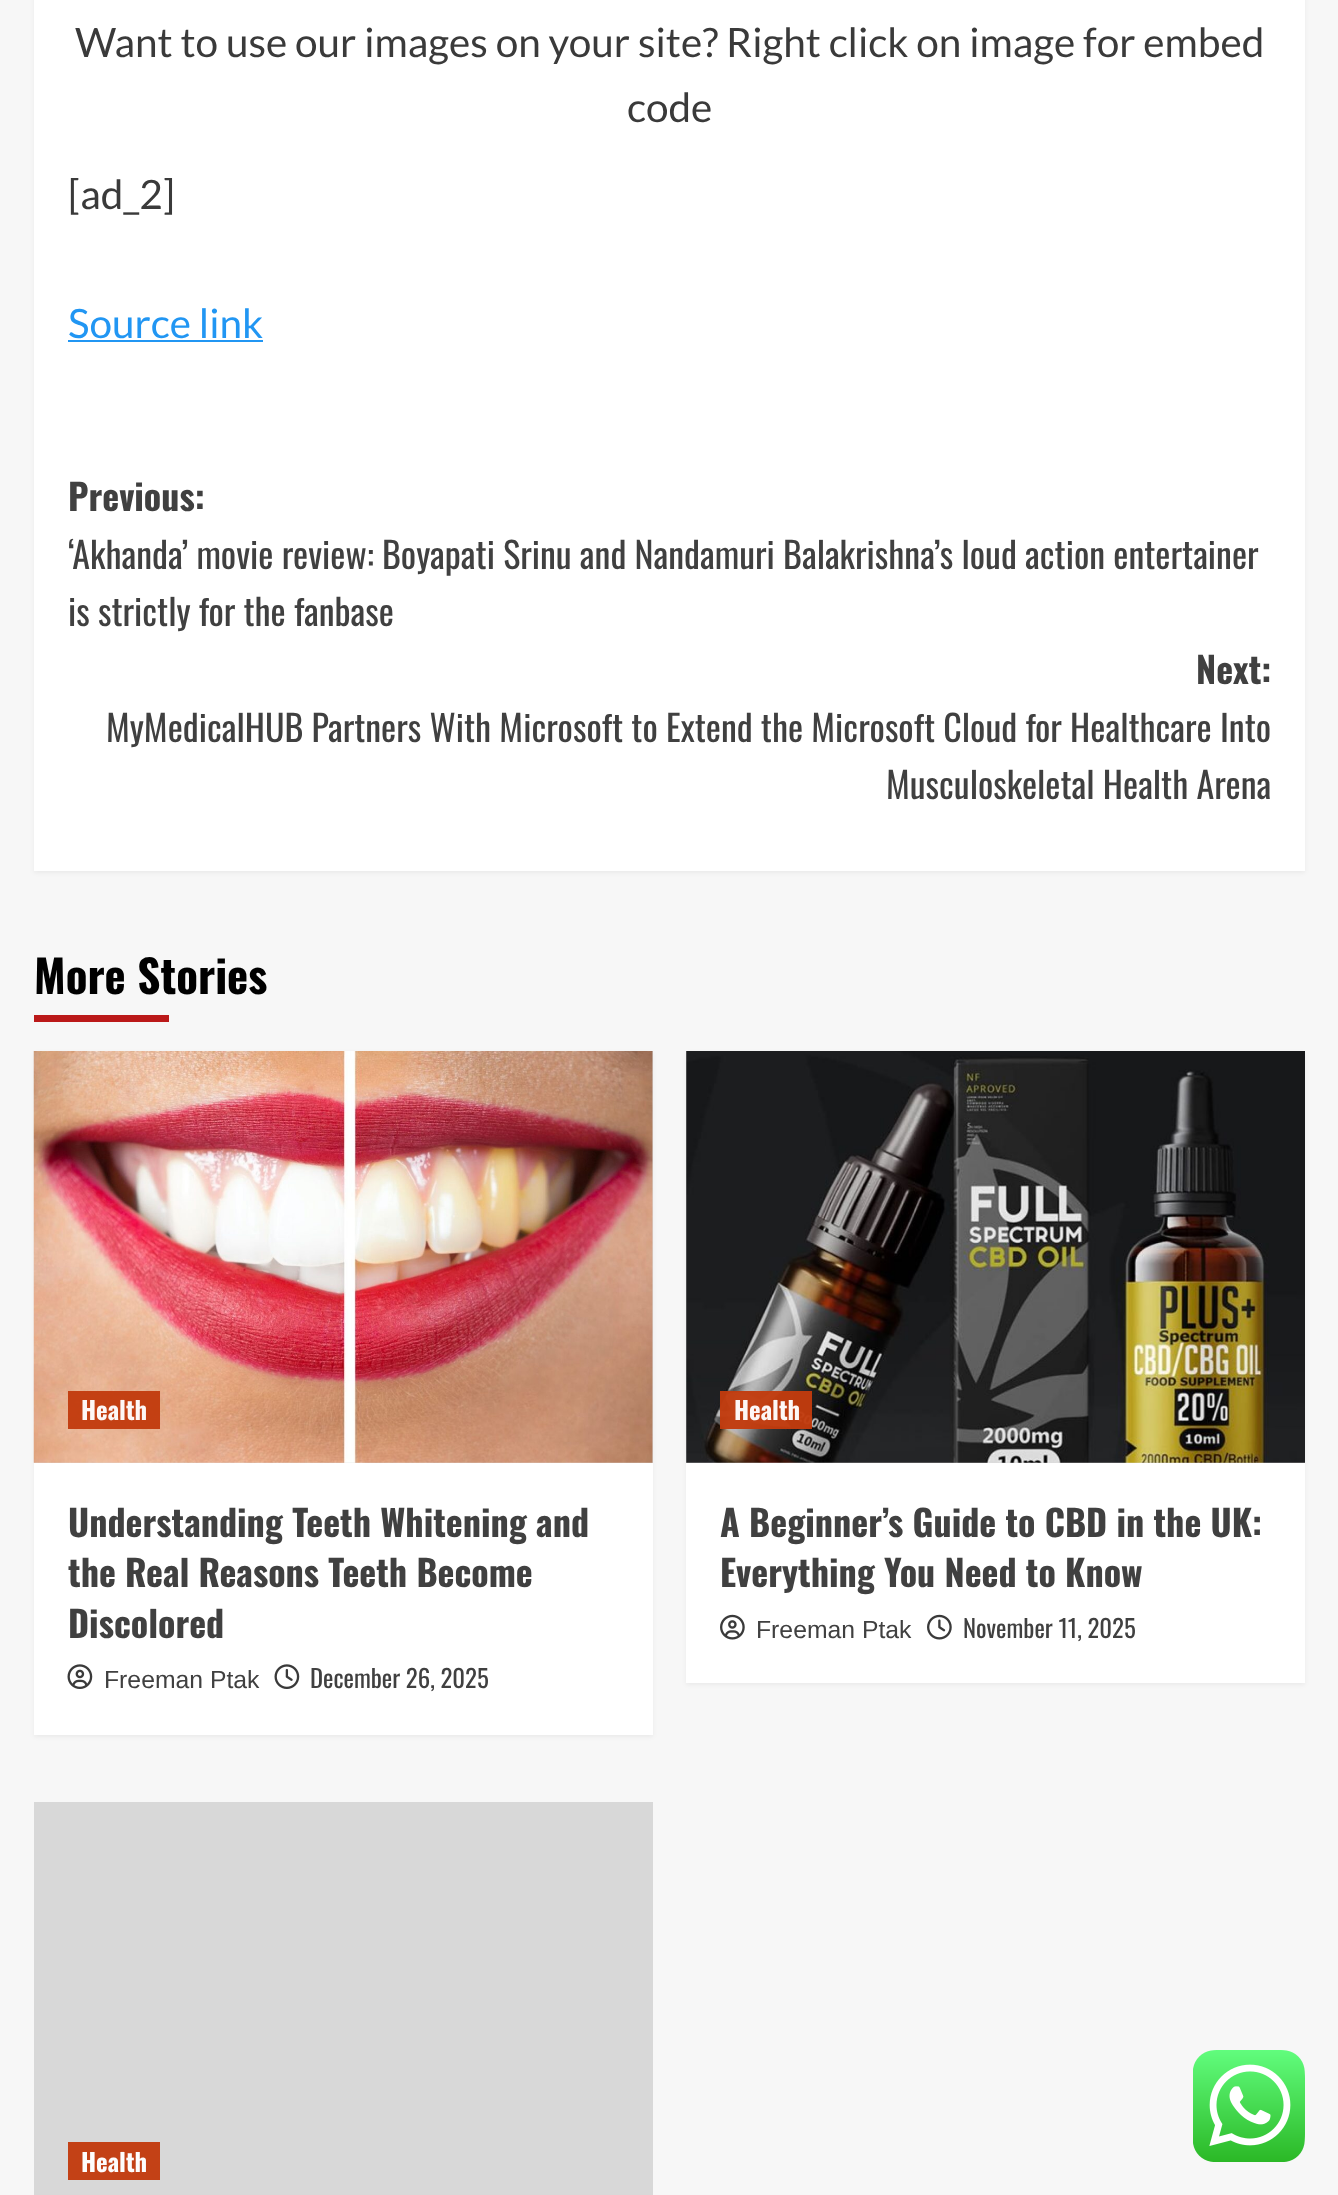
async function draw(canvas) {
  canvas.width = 1338
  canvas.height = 2195
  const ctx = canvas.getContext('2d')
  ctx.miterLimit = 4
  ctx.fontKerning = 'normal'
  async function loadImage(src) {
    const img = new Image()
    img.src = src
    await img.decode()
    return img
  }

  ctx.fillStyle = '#f7f7f7'
  ctx.fillRect(0, 0, 1338, 2195)
  ctx.fillStyle = '#0000000d'
  ctx.filter = 'blur(2px)'
  ctx.beginPath()
  ctx.rect(34, -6, 1271, 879)
  ctx.fill()
  ctx.filter = 'none'
  ctx.fillStyle = '#fff'
  ctx.fillRect(34, 0, 1271, 871)
  ctx.font = '40.5px Lato'
  ctx.fillStyle = '#3a3a3a'
  ctx.fillText('Want to use our images on your site? Right click on image for embed', 75, 57)
  ctx.fillText('code', 627, 122)
  ctx.fillText('[ad_2]', 68, 209)
  ctx.fillStyle = '#2196f3'
  ctx.fillText('Source link', 68, 338)
  ctx.fillRect(68, 340, 195, 2)
  ctx.font = 'bold 36px Oswald'
  ctx.fillStyle = '#404040'
  ctx.fillText('Previous:', 68, 511)
  ctx.font = '36px Oswald'
  ctx.fillText('‘Akhanda’ movie review: Boyapati Srinu and Nandamuri Balakrishna’s loud action entertainer', 68, 569)
  ctx.fillText('is strictly for the fanbase', 68, 626)
  ctx.font = 'bold 36px Oswald'
  ctx.fillText('Next:', 1196, 684)
  ctx.font = '36px Oswald'
  ctx.fillText('MyMedicalHUB Partners With Microsoft to Extend the Microsoft Cloud for Healthcare Into', 106, 742)
  ctx.fillText('Musculoskeletal Health Arena', 886, 799)
  ctx.font = 'bold 45px Oswald'
  ctx.fillStyle = '#000'
  ctx.fillText('More Stories', 34, 994)
  ctx.fillStyle = '#bb1919'
  ctx.fillRect(34, 1015, 135, 7)
  ctx.fillStyle = '#0000000d'
  ctx.filter = 'blur(2px)'
  ctx.beginPath()
  ctx.rect(34, 1053, 619, 684)
  ctx.fill()
  ctx.filter = 'none'
  ctx.fillStyle = '#fff'
  ctx.fillRect(34, 1463, 619, 272)
  ctx.fillStyle = '#d8d8d8'
  ctx.fillRect(34, 1051, 619, 412)
  ctx.drawImage(await loadImage('image0.png'), 33, 1051, 620, 412)
  ctx.fillStyle = '#c23b0ef5'
  ctx.fillRect(68, 1391, 92, 38)
  ctx.font = 'bold 24.75px Oswald'
  ctx.fillStyle = '#fdf7f6'
  ctx.fillText('Health', 81, 1420)
  ctx.font = 'bold 36px Oswald'
  ctx.fillStyle = '#404040'
  ctx.fillText('Understanding Teeth Whitening and', 68, 1537)
  ctx.fillText('the Real Reasons Teeth Become', 68, 1587)
  ctx.fillText('Discolored', 68, 1638)
  ctx.drawImage(await loadImage('image1.png'), 67, 1664, 26, 25)
  ctx.font = '24.75px Liberation Sans'
  ctx.fillText('Freeman Ptak', 104, 1688)
  ctx.drawImage(await loadImage('image2.png'), 274, 1664, 26, 25)
  ctx.font = '24.75px Oswald'
  ctx.fillText('December 26, 2025', 310, 1688)
  ctx.fillStyle = '#0000000d'
  ctx.filter = 'blur(2px)'
  ctx.beginPath()
  ctx.rect(686, 1053, 619, 632)
  ctx.fill()
  ctx.filter = 'none'
  ctx.fillStyle = '#fff'
  ctx.fillRect(686, 1463, 619, 220)
  ctx.fillStyle = '#d8d8d8'
  ctx.fillRect(686, 1051, 619, 412)
  ctx.drawImage(await loadImage('image3.png'), 686, 1051, 619, 412)
  ctx.fillStyle = '#c23b0ef5'
  ctx.fillRect(720, 1391, 92, 38)
  ctx.font = 'bold 24.75px Oswald'
  ctx.fillStyle = '#fdf7f6'
  ctx.fillText('Health', 734, 1420)
  ctx.font = 'bold 36px Oswald'
  ctx.fillStyle = '#404040'
  ctx.fillText('A Beginner’s Guide to CBD in the UK:', 720, 1537)
  ctx.fillText('Everything You Need to Know', 720, 1587)
  ctx.drawImage(await loadImage('image4.png'), 720, 1614, 25, 26)
  ctx.font = '24.75px Liberation Sans'
  ctx.fillText('Freeman Ptak', 756, 1638)
  ctx.drawImage(await loadImage('image5.png'), 927, 1614, 25, 26)
  ctx.font = '24.75px Oswald'
  ctx.fillText('November 11, 2025', 963, 1638)
  ctx.fillStyle = '#d8d8d8'
  ctx.fillRect(34, 1802, 619, 393)
  ctx.fillStyle = '#c34116'
  ctx.fillRect(68, 2142, 92, 38)
  ctx.font = 'bold 24.75px Oswald'
  ctx.fillStyle = '#fdfdfd'
  ctx.fillText('Health', 81, 2172)
  ctx.drawImage(await loadImage('image6.png'), 1193, 2050, 112, 112)
}

draw(document.querySelector('canvas'))
